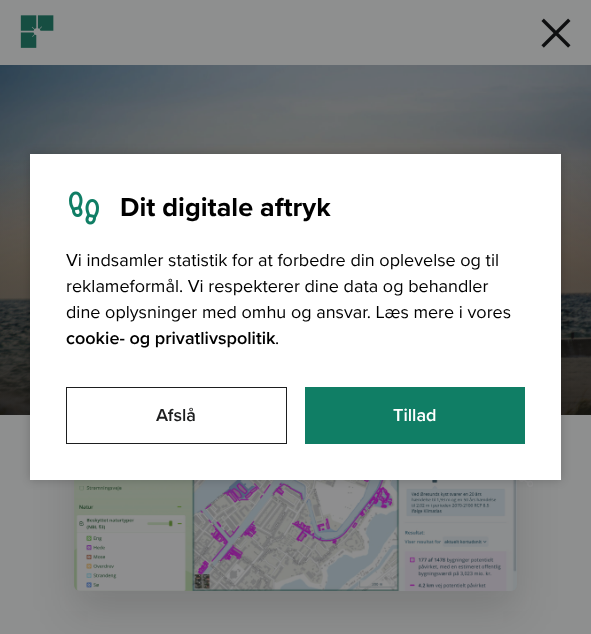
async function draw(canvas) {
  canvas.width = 591
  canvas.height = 634
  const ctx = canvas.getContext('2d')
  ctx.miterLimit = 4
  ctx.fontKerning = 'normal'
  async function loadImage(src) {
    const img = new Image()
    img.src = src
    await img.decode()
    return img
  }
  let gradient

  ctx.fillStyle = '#8e8f8f'
  ctx.fillRect(0, 0, 591, 634)
  ctx.drawImage(await loadImage('image0.png'), 20, 15, 34, 33)
  ctx.drawImage(await loadImage('image1.png'), 541, 18, 30, 30)
  ctx.drawImage(await loadImage('image2.png'), 0, 65, 591, 350)
  gradient = ctx.createLinearGradient(296, 153, 296, 415)
  gradient.addColorStop(0, '#0f0f1000')
  gradient.addColorStop(1, '#0f0f10cc')
  ctx.fillStyle = gradient
  ctx.fillRect(0, 160, 591, 255)
  ctx.fillStyle = '#0f0f1026'
  ctx.filter = 'blur(20px)'
  ctx.beginPath()
  ctx.roundRect(74, 354, 443, 257, 6)
  ctx.fill()
  ctx.filter = 'none'
  ctx.drawImage(await loadImage('image3.png'), 74, 480, 443, 111)
  ctx.drawImage(await loadImage('image4.png'), 519, 480, 14, 7)
  ctx.fillStyle = '#00000033'
  ctx.filter = 'blur(5px)'
  ctx.beginPath()
  ctx.rect(30, 154, 531, 326)
  ctx.fill()
  ctx.filter = 'none'
  ctx.fillStyle = '#fff'
  ctx.fillRect(30, 154, 531, 326)
  ctx.drawImage(await loadImage('image5.png'), 69, 191, 30, 34)
  ctx.font = 'bold 27px Proxima Nova'
  ctx.fillStyle = '#000'
  ctx.fillText('Dit digitale aftryk', 120, 216)
  ctx.font = '18px Proxima Nova'
  ctx.fillText('Vi indsamler statistik for at forbedre din oplevelse og til', 66, 266)
  ctx.fillText('reklameformål. Vi respekterer dine data og behandler', 66, 292)
  ctx.fillText('dine oplysninger med omhu og ansvar. Læs mere i vores', 66, 318)
  ctx.font = '600 18px Proxima Nova'
  ctx.fillText('cookie- og privatlivspolitik', 66, 344)
  ctx.font = '18px Proxima Nova'
  ctx.fillText('.', 275, 344)
  ctx.strokeStyle = '#1d1e1f'
  ctx.strokeRect(66.5, 387.5, 220, 56)
  ctx.font = '600 18px Proxima Nova'
  ctx.fillStyle = '#1d1e1f'
  ctx.fillText('Afslå', 156, 421)
  ctx.fillStyle = '#107e65'
  ctx.fillRect(305, 387, 220, 57)
  ctx.fillStyle = '#fff'
  ctx.fillText('Tillad', 393, 421)
}

draw(document.querySelector('canvas'))
